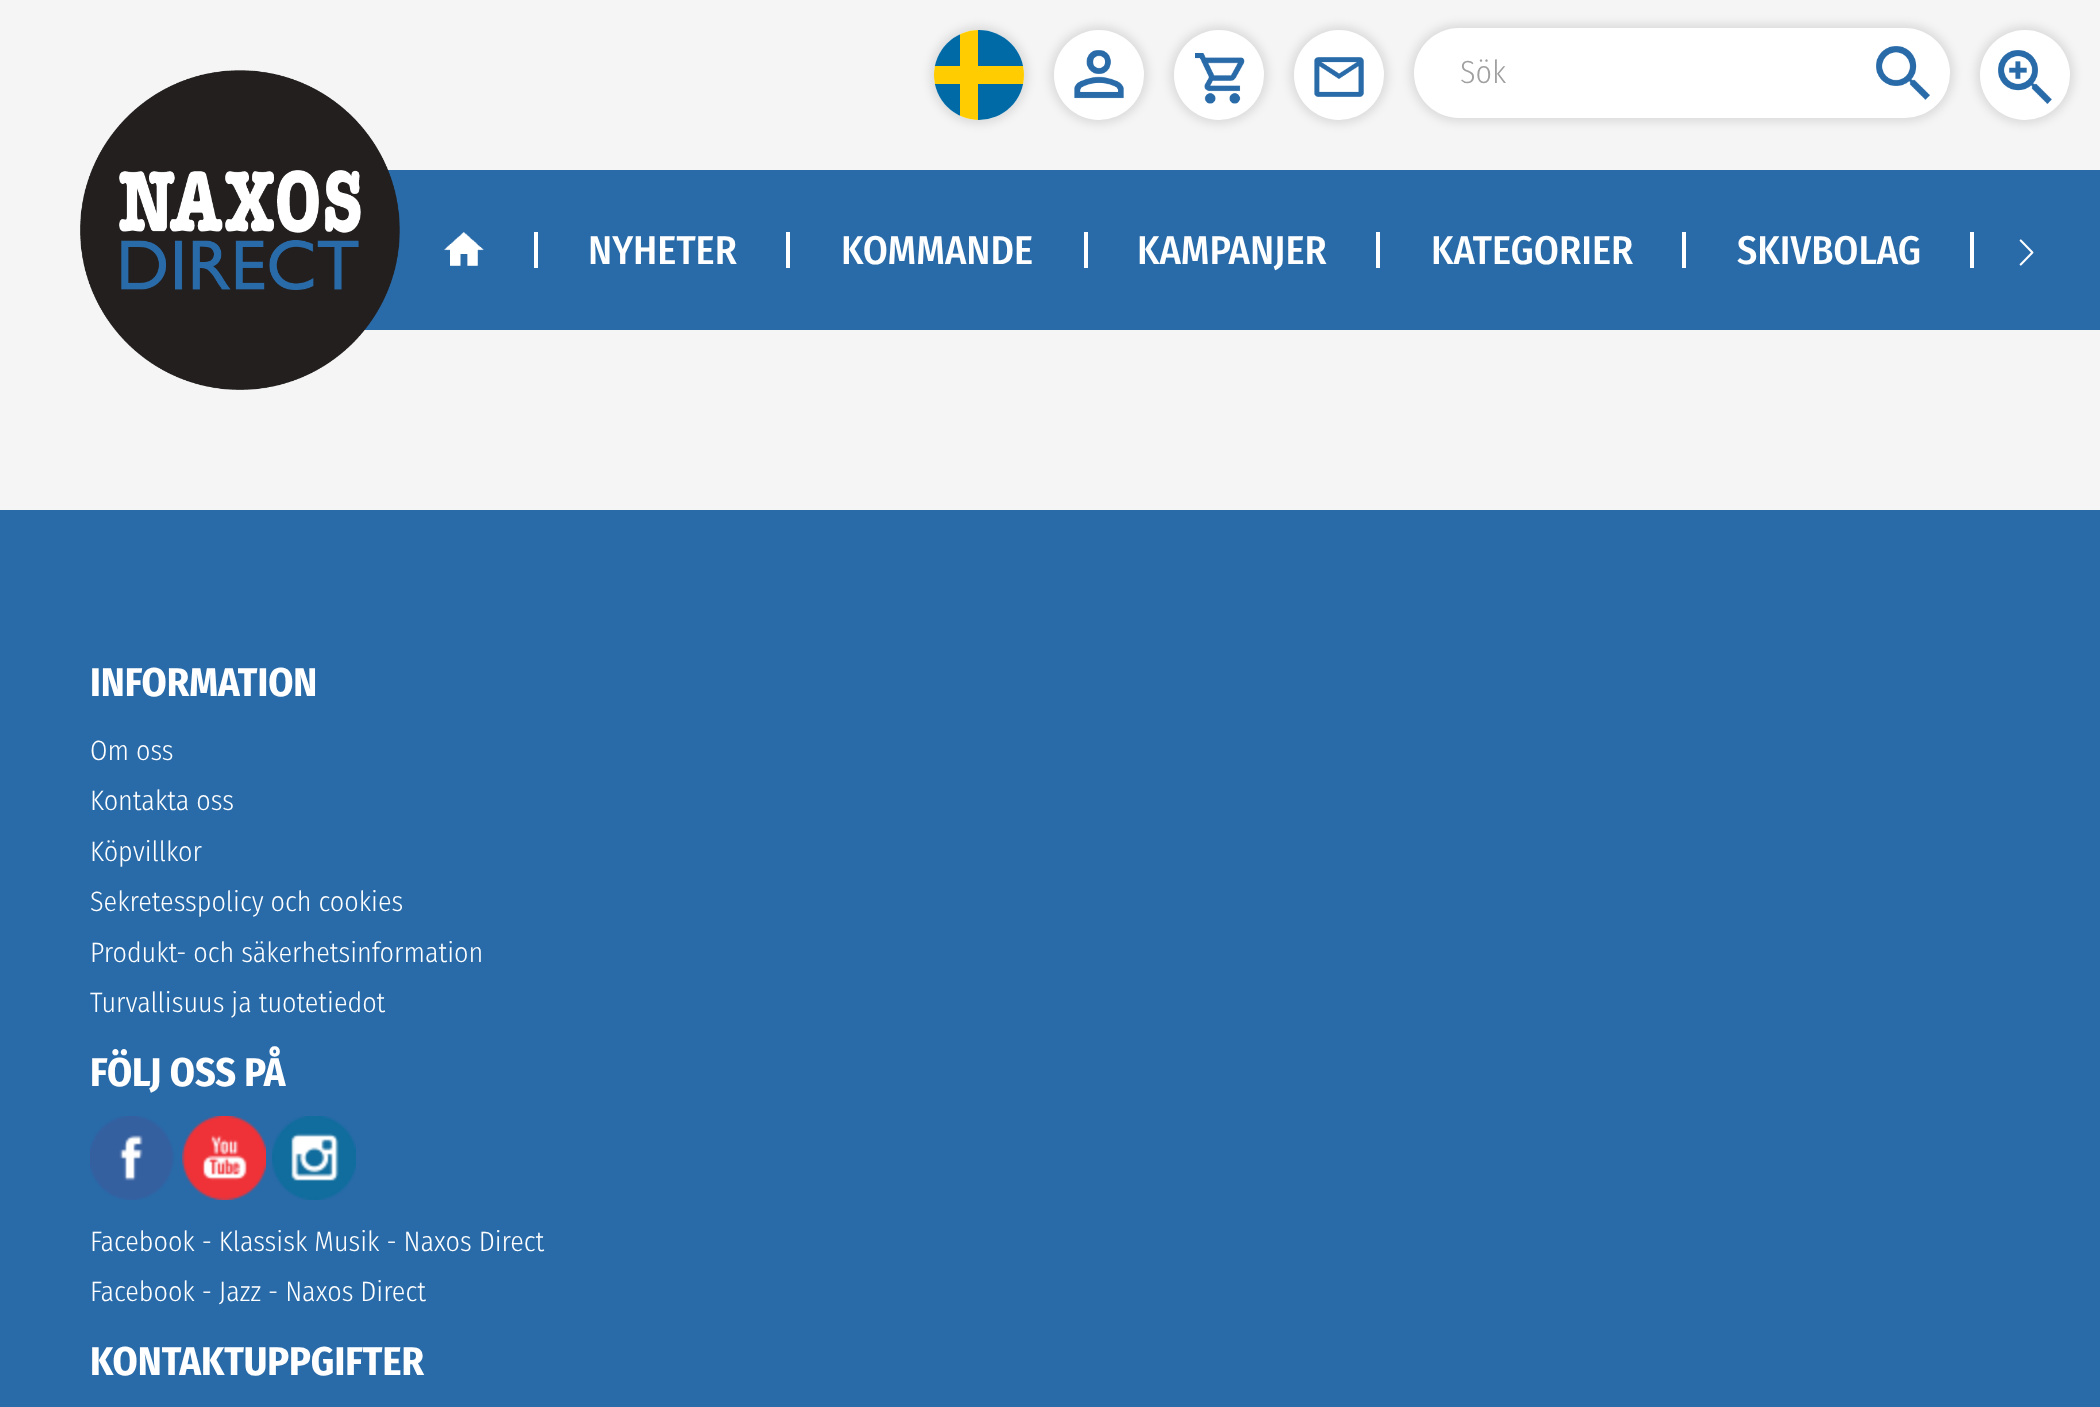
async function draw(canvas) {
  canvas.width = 2100
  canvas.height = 1407
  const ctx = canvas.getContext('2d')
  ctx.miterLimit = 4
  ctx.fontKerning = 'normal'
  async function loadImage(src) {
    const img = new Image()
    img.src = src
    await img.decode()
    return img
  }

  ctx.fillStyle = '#f5f5f5'
  ctx.fillRect(0, 0, 2100, 1407)
  ctx.fillStyle = '#0000001a'
  ctx.filter = 'blur(5px)'
  ctx.beginPath()
  ctx.roundRect(930, 26, 98, 98, 49)
  ctx.fill()
  ctx.filter = 'none'
  ctx.fillStyle = '#fff'
  ctx.beginPath()
  ctx.arc(979, 75, 45, 0, 2 * Math.PI)
  ctx.fill()
  ctx.drawImage(await loadImage('image0.png'), 934, 30, 90, 90)
  ctx.fillStyle = '#0000001a'
  ctx.filter = 'blur(5px)'
  ctx.beginPath()
  ctx.roundRect(1050, 26, 98, 98, 49)
  ctx.fill()
  ctx.filter = 'none'
  ctx.fillStyle = '#fff'
  ctx.beginPath()
  ctx.arc(1099, 75, 45, 0, 2 * Math.PI)
  ctx.fill()
  ctx.drawImage(await loadImage('image1.png'), 1074, 50, 50, 49)
  ctx.fillStyle = '#0000001a'
  ctx.filter = 'blur(5px)'
  ctx.beginPath()
  ctx.roundRect(1170, 26, 98, 98, 49)
  ctx.fill()
  ctx.filter = 'none'
  ctx.fillStyle = '#fff'
  ctx.beginPath()
  ctx.arc(1219, 75, 45, 0, 2 * Math.PI)
  ctx.fill()
  ctx.drawImage(await loadImage('image2.png'), 1195, 53, 50, 51)
  ctx.fillStyle = '#0000001a'
  ctx.filter = 'blur(5px)'
  ctx.beginPath()
  ctx.roundRect(1290, 26, 98, 98, 49)
  ctx.fill()
  ctx.filter = 'none'
  ctx.fillStyle = '#fff'
  ctx.beginPath()
  ctx.arc(1339, 75, 45, 0, 2 * Math.PI)
  ctx.fill()
  ctx.drawImage(await loadImage('image3.png'), 1314, 57, 50, 40)
  ctx.fillStyle = '#0000001a'
  ctx.filter = 'blur(5px)'
  ctx.beginPath()
  ctx.roundRect(1410, 24, 544, 98, 49)
  ctx.fill()
  ctx.filter = 'none'
  ctx.fillStyle = '#fff'
  ctx.beginPath()
  ctx.roundRect(1414, 28, 536, 90, 45)
  ctx.fill()
  ctx.font = '300 32px Fira Sans Condensed'
  ctx.fillStyle = '#a0a0a0'
  ctx.fillText('Sök', 1460, 83)
  ctx.drawImage(await loadImage('image4.png'), 1876, 46, 54, 54)
  ctx.fillStyle = '#0000001a'
  ctx.filter = 'blur(5px)'
  ctx.beginPath()
  ctx.roundRect(1976, 26, 98, 98, 49)
  ctx.fill()
  ctx.filter = 'none'
  ctx.fillStyle = '#fff'
  ctx.beginPath()
  ctx.arc(2025, 75, 45, 0, 2 * Math.PI)
  ctx.fill()
  ctx.drawImage(await loadImage('image5.png'), 1998, 50, 54, 54)
  ctx.fillStyle = '#296ba9'
  ctx.fillRect(364, 170, 1736, 160)
  ctx.drawImage(await loadImage('image6.png'), 80, 70, 320, 320)
  ctx.drawImage(await loadImage('image7.png'), 444, 232, 40, 34)
  ctx.fillStyle = '#fff'
  ctx.fillRect(534, 232, 4, 36)
  ctx.font = '500 40px Fira Sans Condensed'
  ctx.fillText('NYHETER', 588, 264)
  ctx.fillRect(786, 232, 4, 36)
  ctx.fillText('KOMMANDE', 841, 264)
  ctx.fillRect(1084, 232, 4, 36)
  ctx.fillText('KAMPANJER', 1137, 264)
  ctx.fillRect(1376, 232, 4, 36)
  ctx.fillText('KATEGORIER', 1431, 264)
  ctx.fillRect(1682, 232, 4, 36)
  ctx.fillText('SKIVBOLAG', 1737, 264)
  ctx.fillRect(1970, 232, 4, 36)
  ctx.drawImage(await loadImage('image8.png'), 2019, 239, 15, 27)
  ctx.fillStyle = '#296ba9'
  ctx.fillRect(0, 510, 2100, 897)
  ctx.font = 'bold 40px Fira Sans Condensed'
  ctx.fillStyle = '#fff'
  ctx.fillText('INFORMATION', 90, 696)
  ctx.font = '300 28px Fira Sans Condensed'
  ctx.fillText('Om oss', 90, 760)
  ctx.fillText('Kontakta oss', 90, 810)
  ctx.fillText('Köpvillkor', 90, 861)
  ctx.fillText('Sekretesspolicy och cookies', 90, 911)
  ctx.fillText('Produkt- och säkerhetsinformation', 90, 962)
  ctx.fillText('Turvallisuus ja tuotetiedot', 90, 1012)
  ctx.font = 'bold 40px Fira Sans Condensed'
  ctx.fillText('FÖLJ OSS PÅ', 90, 1086)
  ctx.drawImage(await loadImage('image9.png'), 90, 1116, 84, 84)
  ctx.drawImage(await loadImage('image10.png'), 182, 1116, 84, 84)
  ctx.drawImage(await loadImage('image11.png'), 272, 1116, 84, 84)
  ctx.font = '300 28px Fira Sans Condensed'
  ctx.fillText('Facebook - Klassisk Musik - Naxos Direct', 90, 1251)
  ctx.fillText('Facebook - Jazz - Naxos Direct', 90, 1301)
  ctx.font = 'bold 40px Fira Sans Condensed'
  ctx.fillText('KONTAKTUPPGIFTER', 90, 1375)
}

draw(document.querySelector('canvas'))
